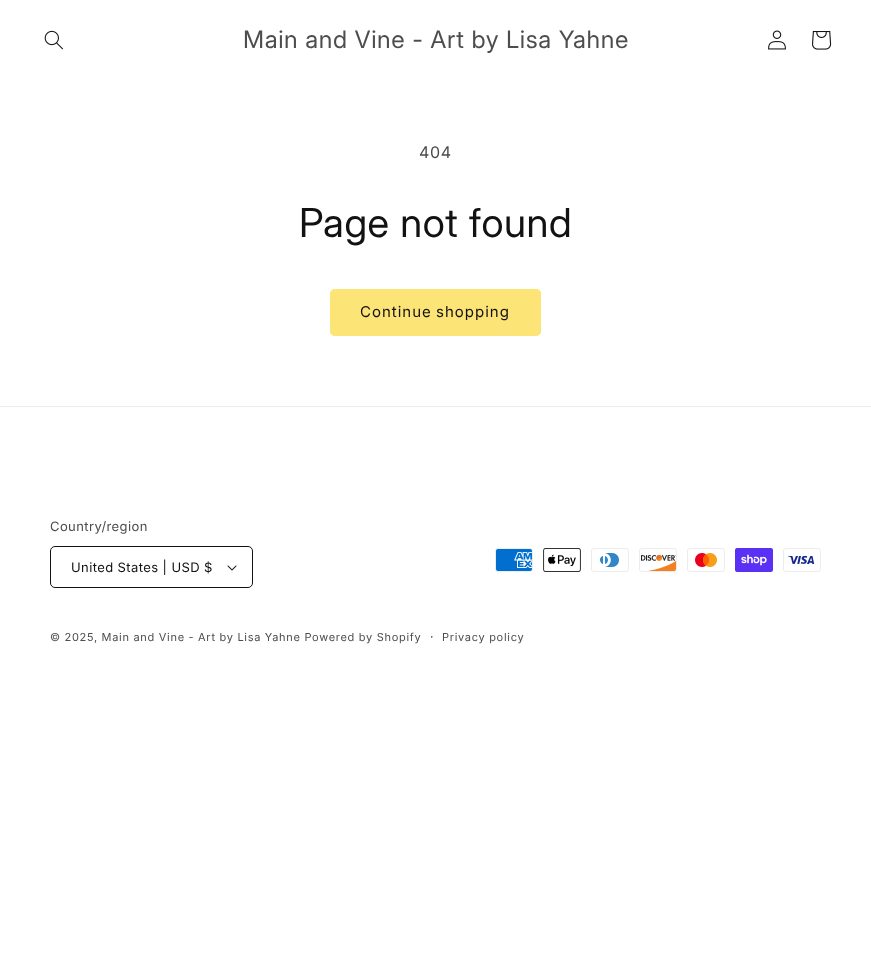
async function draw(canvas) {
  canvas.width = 871
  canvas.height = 965
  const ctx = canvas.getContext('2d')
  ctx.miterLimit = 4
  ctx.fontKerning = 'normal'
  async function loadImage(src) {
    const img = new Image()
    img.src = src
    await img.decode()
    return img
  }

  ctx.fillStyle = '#fff'
  ctx.fillRect(0, 0, 871, 965)
  ctx.drawImage(await loadImage('image0.png'), 44, 30, 19, 20)
  ctx.letterSpacing = '0.6px'
  ctx.font = '24px "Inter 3"'
  ctx.fillStyle = '#4d4d4d'
  ctx.fillText('Main and Vine - Art by Lisa Yahne', 243, 48)
  ctx.drawImage(await loadImage('image1.png'), 768, 30, 18, 20)
  ctx.drawImage(await loadImage('image2.png'), 812, 31, 20, 19)
  ctx.font = '16px Inter'
  ctx.fillText('404', 419, 158)
  ctx.font = '40px "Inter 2"'
  ctx.fillStyle = '#121212'
  ctx.fillText('Page not found', 299, 237)
  ctx.fillStyle = '#fce477'
  ctx.beginPath()
  ctx.roundRect(330, 289, 211, 47, 5)
  ctx.fill()
  ctx.beginPath()
  ctx.roundRect(330.5, 289.5, 210, 46, 4.5)
  ctx.strokeStyle = '#fce477'
  ctx.stroke()
  ctx.letterSpacing = '1px'
  ctx.wordSpacing = '-1px'
  ctx.font = '15px Inter'
  ctx.fillStyle = '#121212'
  ctx.fillText('Continue shopping', 360, 317)
  ctx.fillStyle = '#ececec'
  ctx.fillRect(0, 406, 871, 1)
  ctx.letterSpacing = '0.4px'
  ctx.wordSpacing = '0px'
  ctx.font = '13px Inter'
  ctx.fillStyle = '#4d4d4d'
  ctx.fillText('Country/region', 50, 531)
  ctx.drawImage(await loadImage('image3.png'), 227, 565, 10, 6)
  ctx.beginPath()
  ctx.roundRect(50.5, 546.5, 202, 41, 4.5)
  ctx.strokeStyle = '#121212'
  ctx.stroke()
  ctx.fillStyle = '#121212'
  ctx.fillText('United States | USD $', 71, 572)
  ctx.drawImage(await loadImage('image4.png'), 495, 548, 38, 24)
  ctx.drawImage(await loadImage('image5.png'), 543, 548, 38, 24)
  ctx.drawImage(await loadImage('image6.png'), 591, 548, 38, 24)
  ctx.drawImage(await loadImage('image7.png'), 639, 548, 38, 24)
  ctx.drawImage(await loadImage('image8.png'), 687, 548, 38, 24)
  ctx.drawImage(await loadImage('image9.png'), 735, 548, 38, 24)
  ctx.drawImage(await loadImage('image10.png'), 783, 548, 38, 24)
  ctx.letterSpacing = '0.7px'
  ctx.font = '11px Inter'
  ctx.fillStyle = '#4d4d4d'
  ctx.fillText('© 2025, Main and Vine - Art by Lisa Yahne Powered by Shopify', 50, 641)
  ctx.font = '12px Inter'
  ctx.fillText('·', 430, 641)
  ctx.font = '11px Inter'
  ctx.fillText('Privacy policy', 442, 641)
}

draw(document.querySelector('canvas'))
